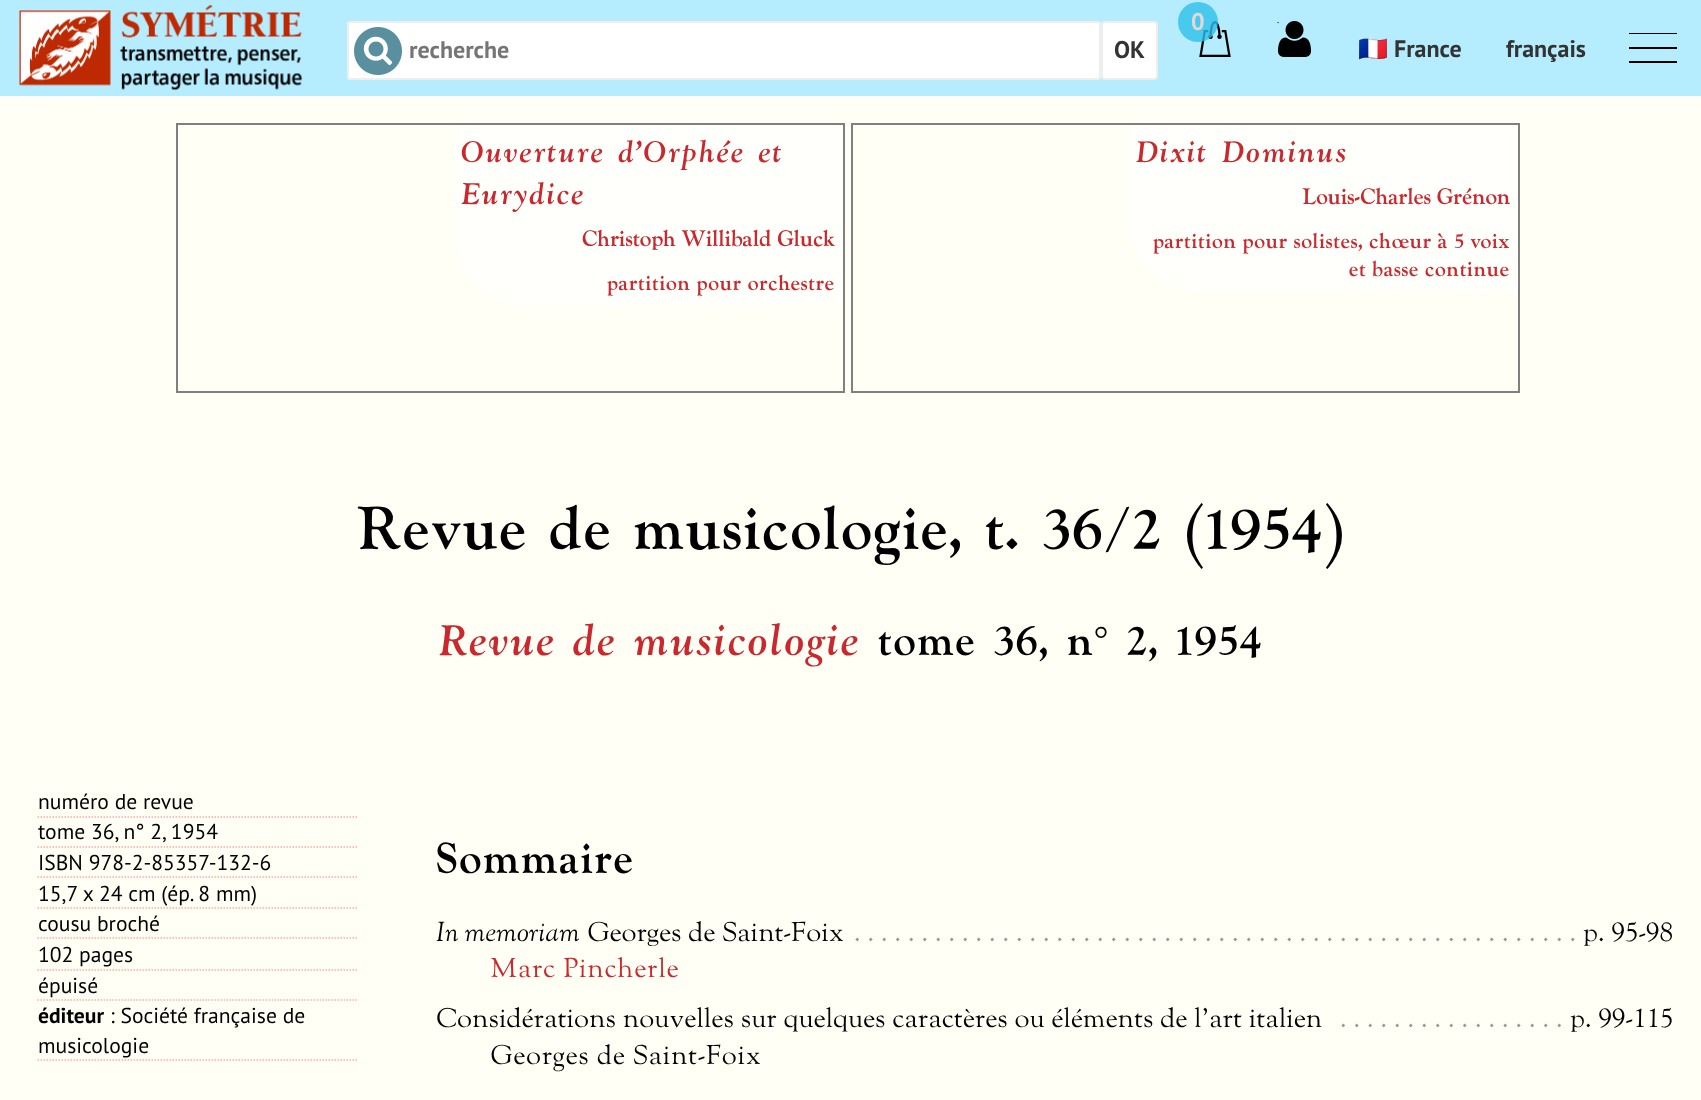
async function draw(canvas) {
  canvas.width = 1701
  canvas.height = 1100
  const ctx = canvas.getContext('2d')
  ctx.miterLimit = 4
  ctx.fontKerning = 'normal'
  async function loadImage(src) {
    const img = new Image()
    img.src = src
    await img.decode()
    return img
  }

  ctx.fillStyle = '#fffff5'
  ctx.fillRect(0, 0, 1701, 1100)
  ctx.fillStyle = '#b5edff'
  ctx.fillRect(0, 0, 1701, 96)
  ctx.fillStyle = '#fff'
  ctx.fillRect(0, 96, 1701, 2)
  ctx.drawImage(await loadImage('image0.png'), 19, 4, 283, 86)
  ctx.beginPath()
  ctx.roundRect(347, 21, 754, 59, 4)
  ctx.fill()
  ctx.drawImage(await loadImage('image1.png'), 354, 27, 48, 48)
  ctx.beginPath()
  ctx.roundRect(348, 22, 752, 57, 3)
  ctx.strokeStyle = '#eee'
  ctx.lineWidth = 2
  ctx.stroke()
  ctx.font = 'bold 24px PT Sans'
  ctx.fillStyle = '#757575'
  ctx.fillText('recherche', 409, 58)
  ctx.fillStyle = '#fff'
  ctx.beginPath()
  ctx.roundRect(1102, 22, 55, 57, 3)
  ctx.fill()
  ctx.stroke()
  ctx.fillStyle = '#333'
  ctx.fillText('OK', 1114, 58)
  ctx.drawImage(await loadImage('image2.png'), 1199, 21, 32, 36)
  ctx.fillStyle = '#2ebfeacc'
  ctx.beginPath()
  ctx.arc(1198, 22, 20, 0, 2 * Math.PI)
  ctx.fill()
  ctx.fillStyle = '#e3d8d6'
  ctx.fillText('0', 1191, 30)
  ctx.drawImage(await loadImage('image3.png'), 1277, 21, 34, 36)
  ctx.font = 'bold 24px Noto Color Emoji'
  ctx.fillStyle = '#333'
  ctx.fillText('🇫🇷', 1358, 57)
  ctx.font = 'bold 24px PT Sans'
  ctx.fillText('France', 1394, 57)
  ctx.fillText('français', 1506, 57)
  ctx.fillStyle = '#000'
  ctx.beginPath()
  ctx.moveTo(1629, 33)
  ctx.lineTo(1629, 34)
  ctx.lineTo(1677, 34)
  ctx.lineTo(1677, 33)
  ctx.closePath()
  ctx.moveTo(1629, 47)
  ctx.lineTo(1629, 49)
  ctx.lineTo(1677, 49)
  ctx.lineTo(1677, 47)
  ctx.closePath()
  ctx.moveTo(1629, 61)
  ctx.lineTo(1629, 63)
  ctx.lineTo(1677, 63)
  ctx.lineTo(1677, 61)
  ctx.closePath()
  ctx.fill()
  ctx.strokeStyle = '#808080'
  ctx.strokeRect(177, 124, 667, 268)
  ctx.fillStyle = '#fffffc'
  ctx.beginPath()
  ctx.roundRect(453, 125, 390, 181, [0, 0, 0, 75])
  ctx.fill()
  ctx.letterSpacing = '1.7px'
  ctx.wordSpacing = '4px'
  ctx.font = 'italic bold 30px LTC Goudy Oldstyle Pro'
  ctx.fillStyle = '#c9282e'
  ctx.fillText('Ouverture d’Orphée et', 461, 162)
  ctx.wordSpacing = '0px'
  ctx.fillText('Eurydice', 461, 204)
  ctx.letterSpacing = '0px'
  ctx.font = 'bold 22.5px LTC Goudy Oldstyle Pro'
  ctx.fillText('Christoph Willibald Gluck', 582, 246)
  ctx.letterSpacing = '0.7px'
  ctx.font = 'bold 21px LTC Goudy Oldstyle Pro'
  ctx.fillText('partition pour orchestre', 607, 290)
  ctx.strokeRect(852, 124, 667, 268)
  ctx.fillStyle = '#fffffc'
  ctx.beginPath()
  ctx.roundRect(1128, 125, 390, 168, [0, 0, 0, 75])
  ctx.fill()
  ctx.letterSpacing = '1.7px'
  ctx.wordSpacing = '4.75px'
  ctx.font = 'italic bold 30px LTC Goudy Oldstyle Pro'
  ctx.fillStyle = '#c9282e'
  ctx.fillText('Dixit Dominus', 1136, 162)
  ctx.letterSpacing = '0px'
  ctx.wordSpacing = '0px'
  ctx.font = 'bold 22.5px LTC Goudy Oldstyle Pro'
  ctx.fillText('Louis-Charles Grénon', 1302, 204)
  ctx.letterSpacing = '0.7px'
  ctx.font = 'bold 21px LTC Goudy Oldstyle Pro'
  ctx.fillText('partition pour solistes, chœur à 5 voix', 1153, 248)
  ctx.fillText('et basse continue', 1349, 276)
  ctx.letterSpacing = '1.7px'
  ctx.wordSpacing = '4.75px'
  ctx.font = 'bold 60px LTC Goudy Oldstyle Pro'
  ctx.fillStyle = '#000'
  ctx.fillText('Revue de musicologie, t. 36/2 (1954)', 356, 549)
  ctx.wordSpacing = '4px'
  ctx.font = 'italic bold 43.25px LTC Goudy Oldstyle Pro'
  ctx.fillStyle = '#c9282e'
  ctx.fillText('Revue de musicologie', 439, 655)
  ctx.wordSpacing = '4.75px'
  ctx.font = 'bold 43.25px LTC Goudy Oldstyle Pro'
  ctx.fillStyle = '#000'
  ctx.fillText('tome 36, n° 2, 1954', 878, 655)
  ctx.beginPath()
  ctx.moveTo(37.5, 817)
  ctx.lineTo(358.5, 817)
  ctx.strokeStyle = '#faa'
  ctx.lineWidth = 1.5
  ctx.setLineDash([1.5, 1.5])
  ctx.stroke()
  ctx.letterSpacing = '0px'
  ctx.wordSpacing = '0px'
  ctx.font = '21.6px PT Sans'
  ctx.fillText('numéro de revue', 38, 809)
  ctx.beginPath()
  ctx.moveTo(37.5, 847)
  ctx.lineTo(358.5, 847)
  ctx.stroke()
  ctx.fillText('tome 36, n° 2, 1954', 38, 839)
  ctx.beginPath()
  ctx.moveTo(37.5, 877)
  ctx.lineTo(358.5, 877)
  ctx.stroke()
  ctx.fillText('ISBN 978-2-85357-132-6', 38, 870)
  ctx.beginPath()
  ctx.moveTo(37.5, 908)
  ctx.lineTo(358.5, 908)
  ctx.stroke()
  ctx.fillText('15,7 x 24 cm (ép. 8 mm)', 38, 901)
  ctx.beginPath()
  ctx.moveTo(37.5, 938)
  ctx.lineTo(358.5, 938)
  ctx.stroke()
  ctx.fillText('cousu broché', 38, 931)
  ctx.beginPath()
  ctx.moveTo(37.5, 970)
  ctx.lineTo(358.5, 970)
  ctx.stroke()
  ctx.fillText('102 pages', 38, 962)
  ctx.beginPath()
  ctx.moveTo(37.5, 1000)
  ctx.lineTo(358.5, 1000)
  ctx.stroke()
  ctx.fillText('épuisé', 38, 993)
  ctx.beginPath()
  ctx.moveTo(37.5, 1060)
  ctx.lineTo(358.5, 1060)
  ctx.stroke()
  ctx.font = 'bold 21.6px PT Sans'
  ctx.fillText('éditeur', 38, 1023)
  ctx.font = '21.6px PT Sans'
  ctx.fillText(': Société française de', 110, 1023)
  ctx.fillText('musicologie', 38, 1053)
  ctx.letterSpacing = '1.7px'
  ctx.font = 'bold 43.25px LTC Goudy Oldstyle Pro'
  ctx.fillText('Sommaire', 436, 873)
  ctx.letterSpacing = '0px'
  ctx.font = 'italic 27px LTC Goudy Oldstyle Pro'
  ctx.fillText('In memoriam', 436, 941)
  ctx.font = '27px LTC Goudy Oldstyle Pro'
  ctx.fillText('Georges de Saint-Foix', 587, 941)
  ctx.fillStyle = '#999'
  ctx.fillText('. . . . . . . . . . . . . . . . . . . . . . . . . . . . . . . . . . . . . . . . . . . . . . . . . . . . . .', 854, 941)
  ctx.fillStyle = '#000'
  ctx.fillText('p. 95-98', 1583, 941)
  ctx.letterSpacing = '0.7px'
  ctx.fillStyle = '#c9282e'
  ctx.fillText('Marc Pincherle', 490, 977)
  ctx.letterSpacing = '0px'
  ctx.fillStyle = '#000'
  ctx.fillText('Considérations nouvelles sur quelques caractères ou éléments de l’art italien', 436, 1027)
  ctx.fillStyle = '#999'
  ctx.fillText('. . . . . . . . . . . . . . . . .', 1340, 1027)
  ctx.fillStyle = '#000'
  ctx.fillText('p. 99-115', 1570, 1027)
  ctx.letterSpacing = '0.7px'
  ctx.fillText('Georges de Saint-Foix', 490, 1064)
}

draw(document.querySelector('canvas'))
